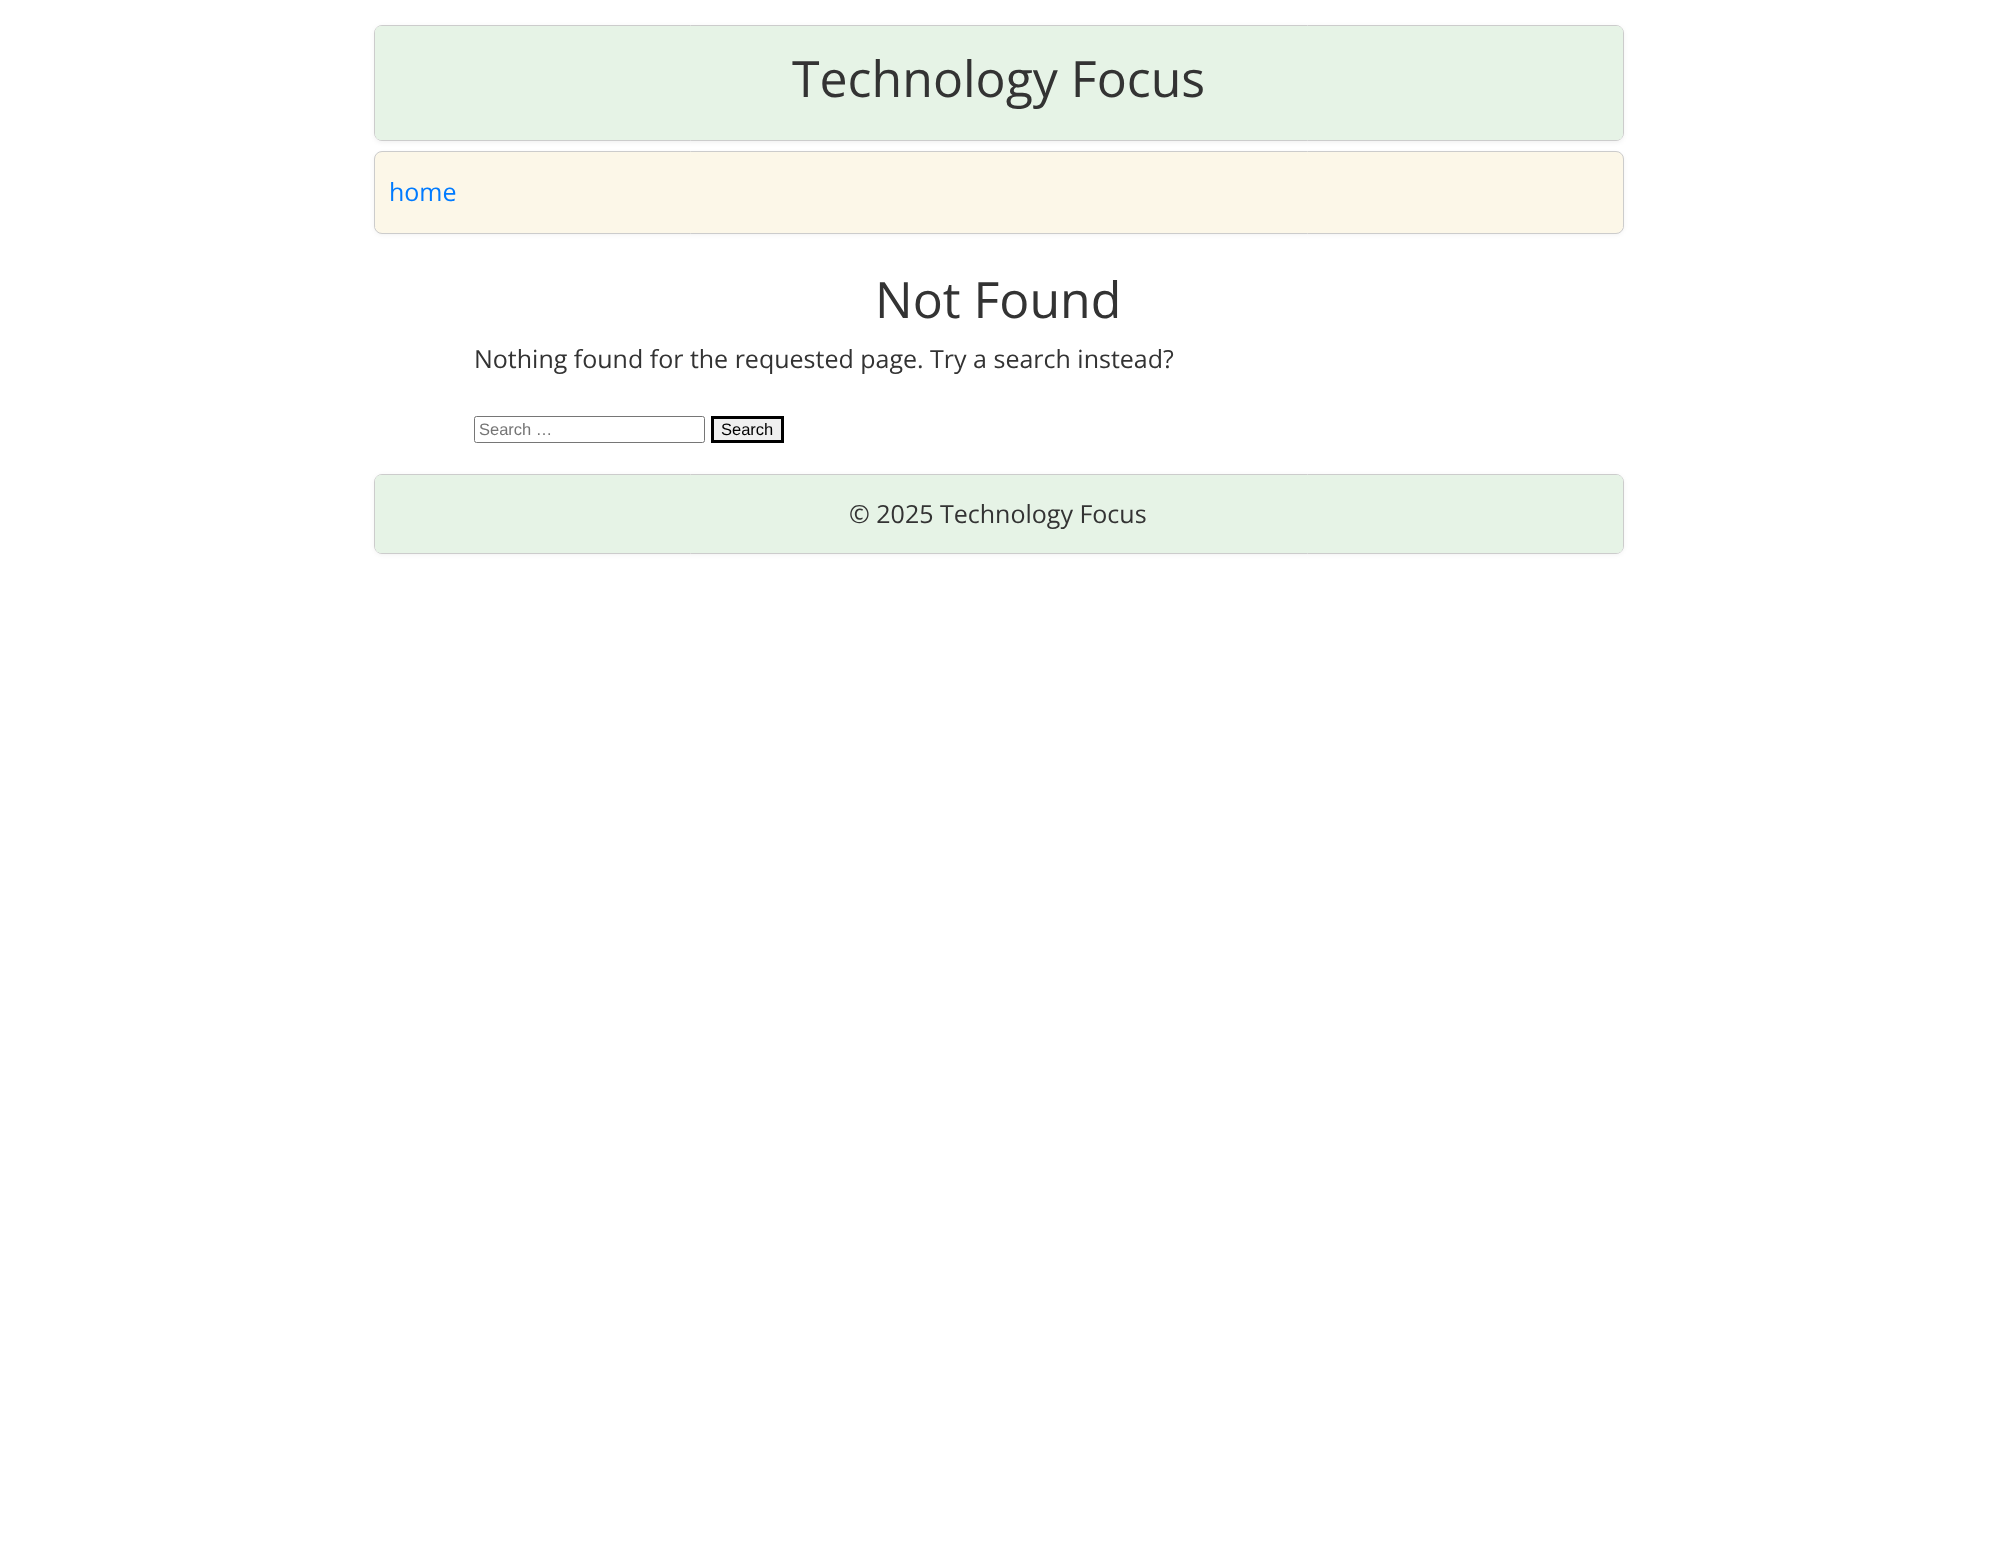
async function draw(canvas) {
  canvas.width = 2014
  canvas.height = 1554
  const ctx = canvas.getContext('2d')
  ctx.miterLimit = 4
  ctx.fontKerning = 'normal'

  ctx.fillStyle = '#fff'
  ctx.fillRect(0, 0, 2014, 1554)
  ctx.fillStyle = '#0000000d'
  ctx.filter = 'blur(2px)'
  ctx.beginPath()
  ctx.roundRect(374, 26, 1250, 117, 8)
  ctx.fill()
  ctx.filter = 'none'
  ctx.beginPath()
  ctx.roundRect(374.5, 25.5, 1249, 115, 7.5)
  ctx.strokeStyle = '#ccc'
  ctx.stroke()
  ctx.fillStyle = '#e6f3e6'
  ctx.beginPath()
  ctx.roundRect(375, 26, 1248, 114, 6)
  ctx.fill()
  ctx.font = '50px Open Sans'
  ctx.fillStyle = '#333'
  ctx.fillText('Technology Focus', 792, 97)
  ctx.fillStyle = '#0000000d'
  ctx.filter = 'blur(2px)'
  ctx.beginPath()
  ctx.roundRect(374, 153, 1250, 82, 8)
  ctx.fill()
  ctx.filter = 'none'
  ctx.fillStyle = '#fcf7e8'
  ctx.beginPath()
  ctx.roundRect(374.5, 151.5, 1249, 82, 7.5)
  ctx.fill()
  ctx.stroke()
  ctx.fillRect(375, 227, 1248, 1)
  ctx.font = '25px Open Sans'
  ctx.fillStyle = '#007bff'
  ctx.fillText('home', 389, 201)
  ctx.font = '50px Open Sans'
  ctx.fillStyle = '#333'
  ctx.fillText('Not Found', 875, 318)
  ctx.font = '25px Open Sans'
  ctx.fillText('Nothing found for the requested page. Try a search instead?', 474, 368)
  ctx.beginPath()
  ctx.roundRect(474.5, 416.5, 230, 26, 2)
  ctx.strokeStyle = '#767676'
  ctx.stroke()
  ctx.font = '16.5px Liberation Sans'
  ctx.fillStyle = '#757575'
  ctx.fillText('Search …', 479, 435)
  ctx.fillStyle = '#efefef'
  ctx.beginPath()
  ctx.rect(712.5, 417.5, 70, 24)
  ctx.fill()
  ctx.strokeStyle = '#000'
  ctx.lineWidth = 3
  ctx.stroke()
  ctx.fillStyle = '#000'
  ctx.fillText('Search', 721, 435)
  ctx.fillStyle = '#0000000d'
  ctx.filter = 'blur(2px)'
  ctx.beginPath()
  ctx.roundRect(374, 475, 1250, 80, 8)
  ctx.fill()
  ctx.filter = 'none'
  ctx.beginPath()
  ctx.roundRect(374.5, 474.5, 1249, 79, 7.5)
  ctx.strokeStyle = '#ccc'
  ctx.lineWidth = 1
  ctx.stroke()
  ctx.fillStyle = '#e6f3e6'
  ctx.beginPath()
  ctx.roundRect(375, 475, 1248, 78, 6)
  ctx.fill()
  ctx.font = '25px Open Sans'
  ctx.fillStyle = '#333'
  ctx.fillText('© 2025 Technology Focus', 849, 523)
}

draw(document.querySelector('canvas'))
